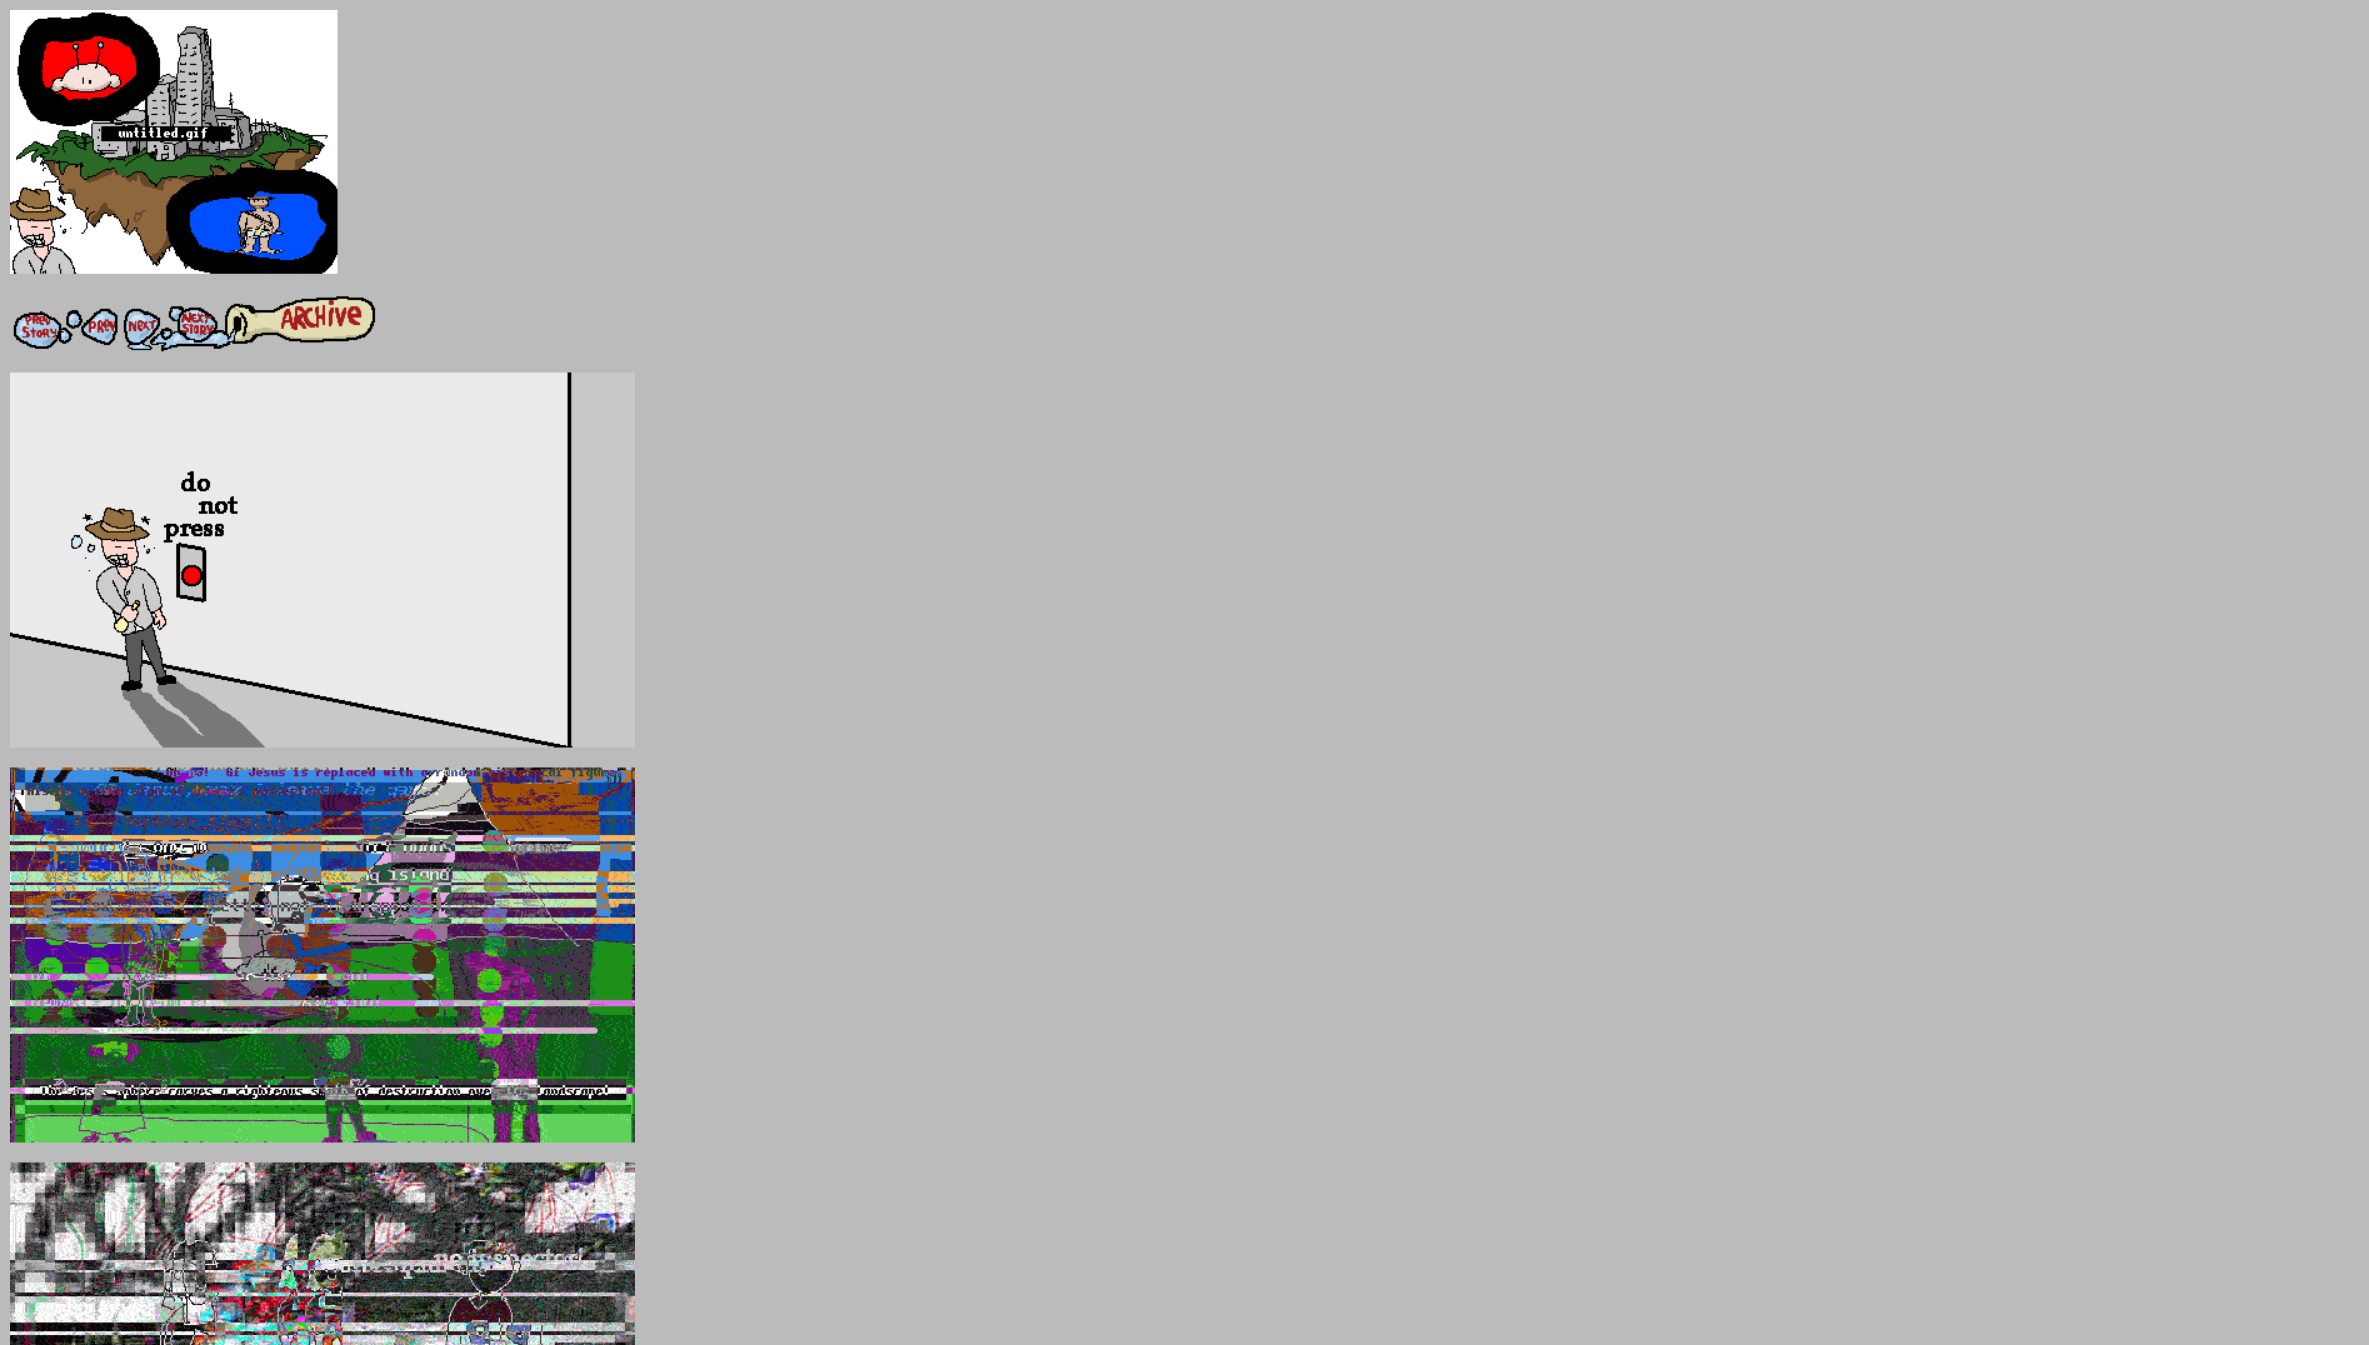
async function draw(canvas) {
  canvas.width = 2369
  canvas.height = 1345
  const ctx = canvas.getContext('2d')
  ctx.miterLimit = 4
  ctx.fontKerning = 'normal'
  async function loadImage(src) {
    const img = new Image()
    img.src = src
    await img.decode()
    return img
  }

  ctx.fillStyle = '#bbb'
  ctx.fillRect(0, 0, 2369, 1345)
  ctx.drawImage(await loadImage('image0.png'), 10, 10, 328, 264)
  ctx.drawImage(await loadImage('image1.png'), 13, 309, 61, 40)
  ctx.drawImage(await loadImage('image2.png'), 73, 308, 45, 38)
  ctx.drawImage(await loadImage('image3.png'), 123, 307, 49, 45)
  ctx.drawImage(await loadImage('image4.png'), 171, 306, 52, 43)
  ctx.drawImage(await loadImage('image5.png'), 222, 296, 154, 52)
  ctx.drawImage(await loadImage('image6.png'), 10, 372, 625, 376)
  ctx.drawImage(await loadImage('image7.png'), 10, 767, 625, 376)
  ctx.drawImage(await loadImage('image8.png'), 10, 1162, 625, 183)
}

draw(document.querySelector('canvas'))
